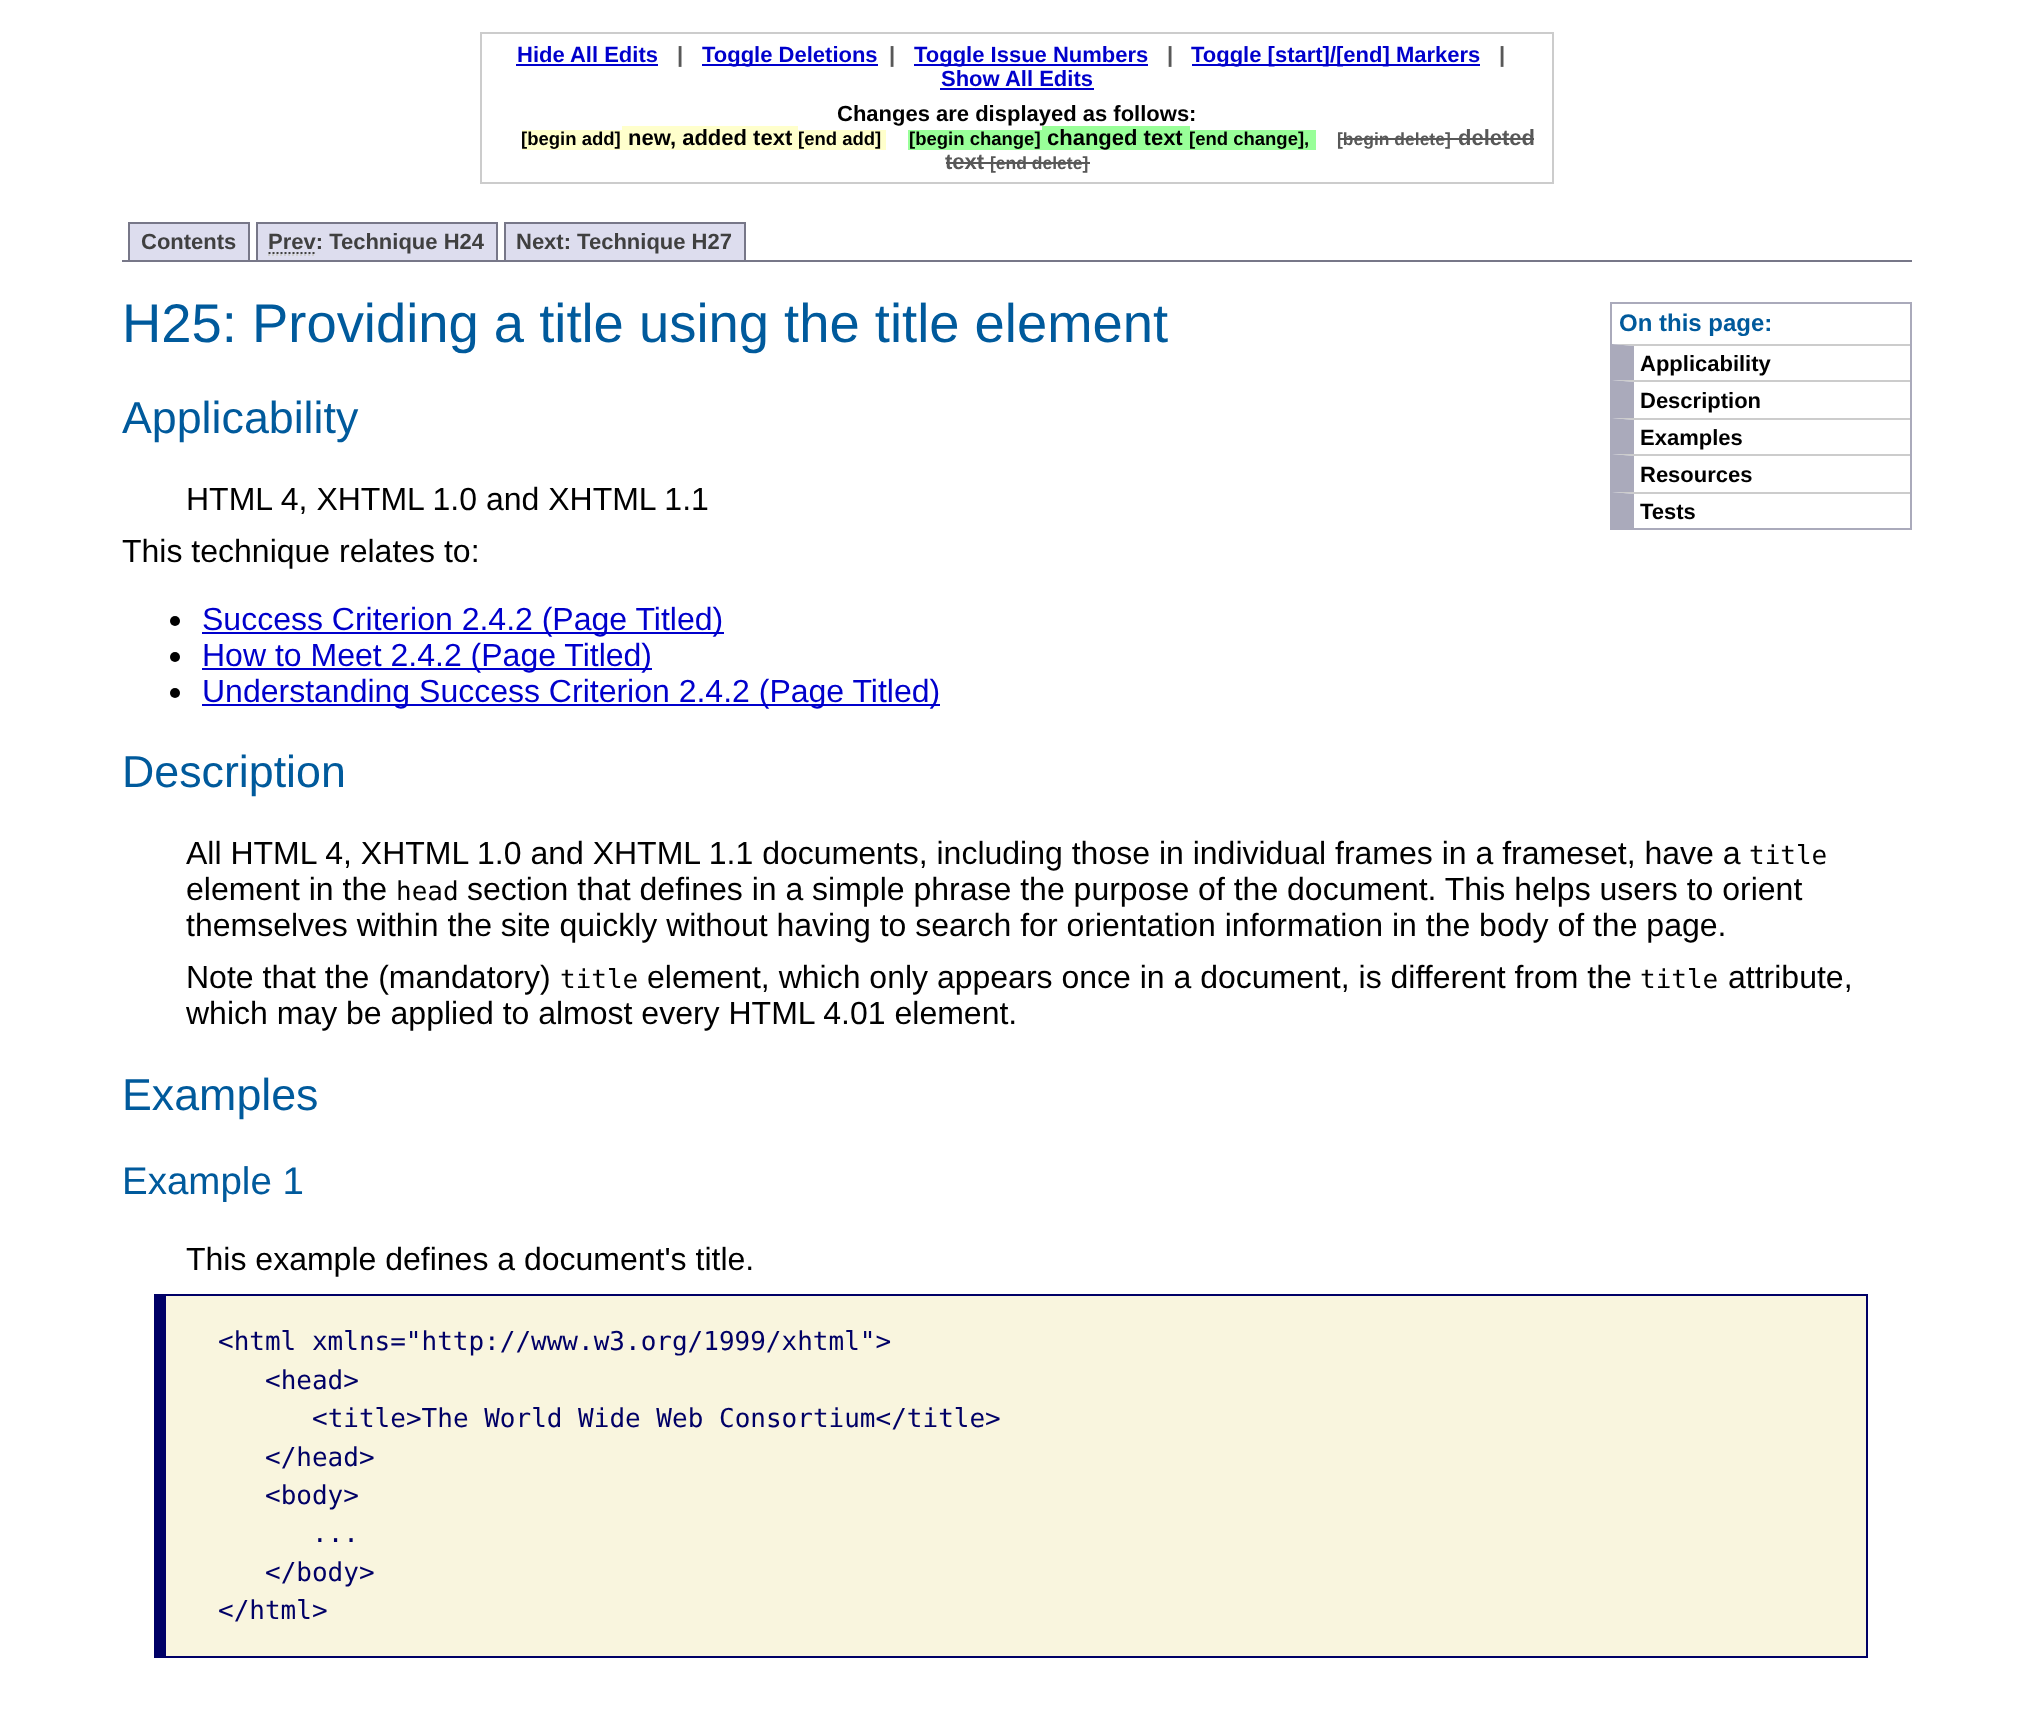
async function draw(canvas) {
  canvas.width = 2034
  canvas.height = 1712
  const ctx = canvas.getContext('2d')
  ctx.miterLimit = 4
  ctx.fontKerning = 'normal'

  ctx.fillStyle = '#fff'
  ctx.fillRect(0, 0, 2034, 1712)
  ctx.strokeStyle = '#ccc'
  ctx.lineWidth = 2
  ctx.strokeRect(481, 33, 1072, 150)
  ctx.font = 'bold 22px Liberation Sans'
  ctx.fillStyle = '#00c'
  ctx.fillText('Hide All Edits', 517, 62)
  ctx.fillRect(516, 64, 142, 2)
  ctx.fillStyle = '#585858'
  ctx.fillText('|', 677, 62)
  ctx.fillStyle = '#00c'
  ctx.fillRect(702, 64, 176, 2)
  ctx.fillText('Toggle Deletions', 702, 62)
  ctx.fillStyle = '#585858'
  ctx.fillText('|', 889, 62)
  ctx.fillStyle = '#00c'
  ctx.fillRect(914, 64, 234, 2)
  ctx.fillText('Toggle Issue Numbers', 914, 62)
  ctx.fillStyle = '#585858'
  ctx.fillText('|', 1167, 62)
  ctx.fillStyle = '#00c'
  ctx.fillRect(1192, 64, 288, 2)
  ctx.fillText('Toggle [start]/[end] Markers', 1191, 62)
  ctx.fillStyle = '#585858'
  ctx.fillText('|', 1499, 62)
  ctx.fillStyle = '#00c'
  ctx.fillText('Show All Edits', 941, 86)
  ctx.fillRect(940, 88, 154, 2)
  ctx.fillStyle = '#000'
  ctx.fillText('Changes are displayed as follows:', 837, 121)
  ctx.fillStyle = '#ffc'
  ctx.fillRect(522, 130, 100, 20)
  ctx.font = 'bold 18.5px Liberation Sans'
  ctx.fillStyle = '#000'
  ctx.fillText('[begin add]', 521, 145)
  ctx.fillStyle = '#ffc'
  ctx.fillRect(622, 126, 176, 24)
  ctx.font = 'bold 22px Liberation Sans'
  ctx.fillStyle = '#000'
  ctx.fillText('new, added text', 628, 145)
  ctx.fillStyle = '#ffc'
  ctx.fillRect(798, 130, 88, 20)
  ctx.font = 'bold 18.5px Liberation Sans'
  ctx.fillStyle = '#000'
  ctx.fillText('[end add]', 798, 145)
  ctx.fillStyle = '#9f9'
  ctx.fillRect(908, 130, 134, 20)
  ctx.fillStyle = '#000'
  ctx.fillText('[begin change]', 909, 145)
  ctx.fillStyle = '#9f9'
  ctx.fillRect(1042, 126, 148, 24)
  ctx.font = 'bold 22px Liberation Sans'
  ctx.fillStyle = '#000'
  ctx.fillText('changed text', 1047, 145)
  ctx.fillStyle = '#9f9'
  ctx.fillRect(1190, 130, 126, 20)
  ctx.font = 'bold 18.5px Liberation Sans'
  ctx.fillStyle = '#000'
  ctx.fillText('[end change],', 1189, 145)
  ctx.font = 'bold 17.5px Liberation Sans'
  ctx.fillStyle = '#585858'
  ctx.fillText('[begin delete]', 1337, 145)
  ctx.fillRect(1338, 138, 114, 2)
  ctx.font = 'bold 22px Liberation Sans'
  ctx.fillText('deleted', 1458, 145)
  ctx.fillRect(1452, 138, 82, 2)
  ctx.fillText('text', 945, 169)
  ctx.fillRect(946, 162, 44, 2)
  ctx.font = 'bold 17.5px Liberation Sans'
  ctx.fillText('[end delete]', 990, 169)
  ctx.fillRect(990, 162, 100, 2)
  ctx.fillStyle = '#778'
  ctx.fillRect(122, 260, 1790, 2)
  ctx.fillStyle = '#dde'
  ctx.fillRect(130, 224, 118, 36)
  ctx.fillStyle = '#778'
  ctx.fillRect(128, 222, 122, 2)
  ctx.fillRect(248, 222, 2, 38)
  ctx.fillRect(128, 222, 2, 38)
  ctx.font = 'bold 22px Liberation Sans'
  ctx.fillStyle = '#404040'
  ctx.fillText('Contents', 141, 249)
  ctx.fillStyle = '#dde'
  ctx.fillRect(258, 224, 238, 36)
  ctx.fillStyle = '#778'
  ctx.fillRect(256, 222, 242, 2)
  ctx.fillRect(496, 222, 2, 38)
  ctx.fillRect(256, 222, 2, 38)
  ctx.beginPath()
  ctx.moveTo(268.5, 253)
  ctx.lineTo(316, 253)
  ctx.strokeStyle = '#404040'
  ctx.setLineDash([2, 2])
  ctx.stroke()
  ctx.fillStyle = '#404040'
  ctx.fillText('Prev: Technique H24', 268, 249)
  ctx.beginPath()
  ctx.moveTo(268, 255)
  ctx.lineTo(316, 255)
  ctx.strokeStyle = '#ccc'
  ctx.stroke()
  ctx.fillStyle = '#dde'
  ctx.fillRect(506, 224, 238, 36)
  ctx.fillStyle = '#778'
  ctx.fillRect(504, 222, 242, 2)
  ctx.fillRect(744, 222, 2, 38)
  ctx.fillRect(504, 222, 2, 38)
  ctx.fillStyle = '#404040'
  ctx.fillText('Next: Technique H27', 516, 249)
  ctx.font = '54.4px Liberation Sans'
  ctx.fillStyle = '#005a9c'
  ctx.fillText('H25: Providing a title using the title element', 122, 342)
  ctx.strokeStyle = '#aab'
  ctx.setLineDash([])
  ctx.strokeRect(1611, 303, 300, 226)
  ctx.font = 'bold 24px Liberation Sans'
  ctx.fillText('On this page:', 1619, 331)
  ctx.fillStyle = '#ccc'
  ctx.beginPath()
  ctx.moveTo(1612, 344)
  ctx.lineTo(1910, 344)
  ctx.lineTo(1910, 346)
  ctx.lineTo(1634, 346)
  ctx.closePath()
  ctx.fill()
  ctx.fillStyle = '#aab'
  ctx.beginPath()
  ctx.moveTo(1612, 380)
  ctx.lineTo(1612, 344)
  ctx.lineTo(1634, 346)
  ctx.lineTo(1634, 380)
  ctx.closePath()
  ctx.fill()
  ctx.font = 'bold 22px Liberation Sans'
  ctx.fillStyle = '#000'
  ctx.fillText('Applicability', 1640, 371)
  ctx.fillStyle = '#ccc'
  ctx.beginPath()
  ctx.moveTo(1612, 380)
  ctx.lineTo(1910, 380)
  ctx.lineTo(1910, 382)
  ctx.lineTo(1634, 382)
  ctx.closePath()
  ctx.fill()
  ctx.fillStyle = '#aab'
  ctx.beginPath()
  ctx.moveTo(1612, 418)
  ctx.lineTo(1612, 380)
  ctx.lineTo(1634, 382)
  ctx.lineTo(1634, 418)
  ctx.closePath()
  ctx.fill()
  ctx.fillStyle = '#000'
  ctx.fillText('Description', 1640, 408)
  ctx.fillStyle = '#ccc'
  ctx.beginPath()
  ctx.moveTo(1612, 418)
  ctx.lineTo(1910, 418)
  ctx.lineTo(1910, 420)
  ctx.lineTo(1634, 420)
  ctx.closePath()
  ctx.fill()
  ctx.fillStyle = '#aab'
  ctx.beginPath()
  ctx.moveTo(1612, 454)
  ctx.lineTo(1612, 418)
  ctx.lineTo(1634, 420)
  ctx.lineTo(1634, 454)
  ctx.closePath()
  ctx.fill()
  ctx.fillStyle = '#000'
  ctx.fillText('Examples', 1640, 445)
  ctx.fillStyle = '#ccc'
  ctx.beginPath()
  ctx.moveTo(1612, 454)
  ctx.lineTo(1910, 454)
  ctx.lineTo(1910, 456)
  ctx.lineTo(1634, 456)
  ctx.closePath()
  ctx.fill()
  ctx.fillStyle = '#aab'
  ctx.beginPath()
  ctx.moveTo(1612, 492)
  ctx.lineTo(1612, 454)
  ctx.lineTo(1634, 456)
  ctx.lineTo(1634, 492)
  ctx.closePath()
  ctx.fill()
  ctx.fillStyle = '#000'
  ctx.fillText('Resources', 1640, 482)
  ctx.fillStyle = '#ccc'
  ctx.beginPath()
  ctx.moveTo(1612, 492)
  ctx.lineTo(1910, 492)
  ctx.lineTo(1910, 494)
  ctx.lineTo(1634, 494)
  ctx.closePath()
  ctx.fill()
  ctx.fillStyle = '#aab'
  ctx.beginPath()
  ctx.moveTo(1612, 528)
  ctx.lineTo(1612, 492)
  ctx.lineTo(1634, 494)
  ctx.lineTo(1634, 528)
  ctx.closePath()
  ctx.fill()
  ctx.fillStyle = '#000'
  ctx.fillText('Tests', 1640, 519)
  ctx.font = '44.75px Liberation Sans'
  ctx.fillStyle = '#005a9c'
  ctx.fillText('Applicability', 122, 433)
  ctx.font = '32px Liberation Sans'
  ctx.fillStyle = '#000'
  ctx.fillText('HTML 4, XHTML 1.0 and XHTML 1.1', 186, 510)
  ctx.fillText('This technique relates to:', 122, 562)
  ctx.beginPath()
  ctx.arc(175, 621, 5, 0, 2 * Math.PI)
  ctx.fill()
  ctx.fillStyle = '#00c'
  ctx.fillRect(202, 632, 522, 2)
  ctx.fillText('Success Criterion 2.4.2 (Page Titled)', 202, 630)
  ctx.fillStyle = '#000'
  ctx.beginPath()
  ctx.arc(175, 657, 5, 0, 2 * Math.PI)
  ctx.fill()
  ctx.fillStyle = '#00c'
  ctx.fillRect(202, 668, 450, 2)
  ctx.fillText('How to Meet 2.4.2 (Page Titled)', 202, 666)
  ctx.fillStyle = '#000'
  ctx.beginPath()
  ctx.arc(175, 693, 5, 0, 2 * Math.PI)
  ctx.fill()
  ctx.fillStyle = '#00c'
  ctx.fillRect(202, 704, 738, 2)
  ctx.fillText('Understanding Success Criterion 2.4.2 (Page Titled)', 202, 702)
  ctx.font = '44.75px Liberation Sans'
  ctx.fillStyle = '#005a9c'
  ctx.fillText('Description', 122, 787)
  ctx.font = '32px Liberation Sans'
  ctx.fillStyle = '#000'
  ctx.fillText('All HTML 4, XHTML 1.0 and XHTML 1.1 documents, including those in individual frames in a frameset, have a', 186, 864)
  ctx.font = '26px DejaVu Sans Mono'
  ctx.fillText('title', 1749, 864)
  ctx.font = '32px Liberation Sans'
  ctx.fillText('element in the', 186, 900)
  ctx.font = '26px DejaVu Sans Mono'
  ctx.fillText('head', 396, 900)
  ctx.font = '32px Liberation Sans'
  ctx.fillText('section that defines in a simple phrase the purpose of the document. This helps users to orient', 467, 900)
  ctx.fillText('themselves within the site quickly without having to search for orientation information in the body of the page.', 186, 936)
  ctx.fillText('Note that the (mandatory)', 186, 988)
  ctx.font = '26px DejaVu Sans Mono'
  ctx.fillText('title', 560, 988)
  ctx.font = '32px Liberation Sans'
  ctx.fillText('element, which only appears once in a document, is different from the', 647, 988)
  ctx.font = '26px DejaVu Sans Mono'
  ctx.fillText('title', 1640, 988)
  ctx.font = '32px Liberation Sans'
  ctx.fillText('attribute,', 1728, 988)
  ctx.fillText('which may be applied to almost every HTML 4.01 element.', 186, 1024)
  ctx.font = '44.75px Liberation Sans'
  ctx.fillStyle = '#005a9c'
  ctx.fillText('Examples', 122, 1110)
  ctx.font = '38.5px Liberation Sans'
  ctx.fillText('Example 1', 122, 1194)
  ctx.font = '32px Liberation Sans'
  ctx.fillStyle = '#000'
  ctx.fillText('This example defines a document\'s title.', 186, 1270)
  ctx.fillStyle = '#f9f5de'
  ctx.fillRect(166, 1296, 1700, 360)
  ctx.fillStyle = '#006'
  ctx.fillRect(166, 1294, 1702, 2)
  ctx.fillRect(1866, 1294, 2, 364)
  ctx.fillRect(166, 1656, 1702, 2)
  ctx.fillRect(154, 1294, 12, 364)
  ctx.font = '26px DejaVu Sans Mono'
  ctx.fillText('<html xmlns="http://www.w3.org/1999/xhtml">', 218, 1350)
  ctx.fillText('<head>', 265, 1389)
  ctx.fillText('<title>The World Wide Web Consortium<\/title>', 312, 1427)
  ctx.fillText('<\/head>', 265, 1466)
  ctx.fillText('<body>', 265, 1504)
  ctx.fillText('...', 312, 1542)
  ctx.fillText('<\/body>', 265, 1581)
  ctx.fillText('<\/html>', 218, 1619)
}

draw(document.querySelector('canvas'))
